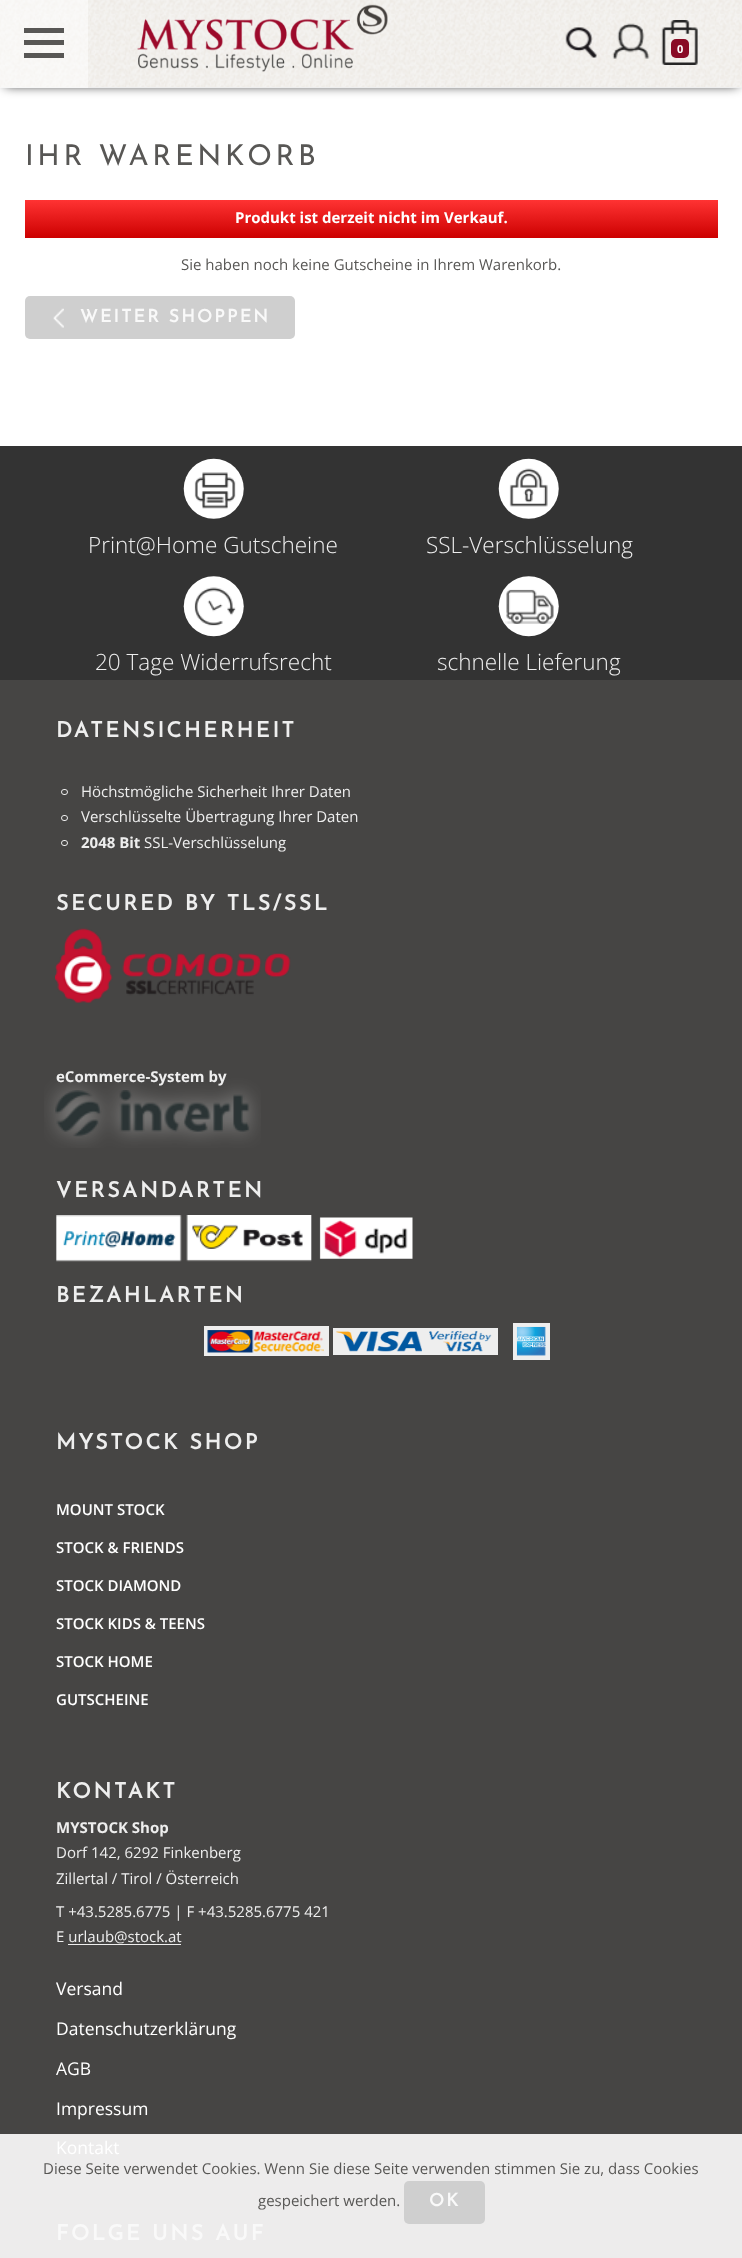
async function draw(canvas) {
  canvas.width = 742
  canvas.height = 2258
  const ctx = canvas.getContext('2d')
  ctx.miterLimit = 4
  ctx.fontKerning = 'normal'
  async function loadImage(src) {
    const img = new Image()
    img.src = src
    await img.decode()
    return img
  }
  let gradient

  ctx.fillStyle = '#fff'
  ctx.fillRect(0, 0, 742, 2258)
  ctx.fillStyle = '#000'
  ctx.filter = 'blur(6px)'
  ctx.beginPath()
  ctx.rect(5, 8, 733, 77)
  ctx.fill()
  ctx.filter = 'none'
  ctx.fillStyle = '#eee'
  ctx.fillRect(0, 87, 742, 1)
  ctx.drawImage(await loadImage('image0.png'), 0, 0, 742, 87)
  ctx.fillStyle = '#ffffff80'
  ctx.fillRect(0, 0, 88, 88)
  ctx.fillStyle = '#585755'
  ctx.fillRect(24, 40, 40, 5)
  ctx.fillRect(24, 28, 40, 5)
  ctx.fillRect(24, 53, 40, 5)
  ctx.drawImage(await loadImage('image1.png'), 137, 4, 251, 68)
  ctx.drawImage(await loadImage('image2.png'), 565, 27, 32, 31)
  ctx.drawImage(await loadImage('image3.png'), 612, 23, 38, 36)
  ctx.drawImage(await loadImage('image4.png'), 661, 20, 37, 45)
  ctx.fillStyle = '#890a25'
  ctx.beginPath()
  ctx.roundRect(671, 39, 18, 19, 5)
  ctx.fill()
  ctx.font = 'bold 11px Open Sans'
  ctx.fillStyle = '#fff'
  ctx.fillText('0', 677, 53)
  ctx.letterSpacing = '3.6px'
  ctx.font = '100 28.75px Josefin Sans'
  ctx.fillStyle = '#585755'
  ctx.fillText('IHR WARENKORB', 25, 165)
  gradient = ctx.createLinearGradient(371, 200, 371, 238)
  gradient.addColorStop(0, '#f33')
  gradient.addColorStop(1, '#c00')
  ctx.fillStyle = gradient
  ctx.fillRect(25, 200, 693, 38)
  ctx.letterSpacing = '0px'
  ctx.font = 'bold 15px Open Sans'
  ctx.fillStyle = '#fff'
  ctx.fillText('Produkt ist derzeit nicht im Verkauf.', 235, 223)
  ctx.font = '15px Open Sans'
  ctx.fillStyle = '#585755'
  ctx.fillText('Sie haben noch keine Gutscheine in Ihrem Warenkorb.', 181, 270)
  ctx.fillStyle = '#cfcfcf'
  ctx.beginPath()
  ctx.roundRect(25, 296, 270, 43, 5)
  ctx.fill()
  ctx.drawImage(await loadImage('image5.png'), 53, 308, 11, 20)
  ctx.letterSpacing = '2.25px'
  ctx.font = 'bold 17.5px Josefin Sans'
  ctx.fillStyle = '#f9f9f9'
  ctx.fillText('WEITER SHOPPEN', 80, 322)
  ctx.fillStyle = '#333'
  ctx.fillRect(0, 446, 742, 234)
  ctx.drawImage(await loadImage('image6.png'), 183, 458, 61, 61)
  ctx.letterSpacing = '0px'
  ctx.font = '300 22.5px Open Sans'
  ctx.fillStyle = '#eee'
  ctx.fillText('Print@Home Gutscheine', 88, 553)
  ctx.drawImage(await loadImage('image7.png'), 498, 458, 61, 61)
  ctx.fillText('SSL-Verschlüsselung', 426, 553)
  ctx.drawImage(await loadImage('image8.png'), 183, 576, 61, 61)
  ctx.fillText('20 Tage Widerrufsrecht', 95, 670)
  ctx.drawImage(await loadImage('image9.png'), 498, 576, 61, 61)
  ctx.fillText('schnelle Lieferung', 437, 670)
  ctx.fillStyle = '#464544'
  ctx.fillRect(0, 680, 742, 1454)
  ctx.fillStyle = '#edecec'
  ctx.fillRect(0, 2134, 742, 124)
  ctx.letterSpacing = '2.7px'
  ctx.font = 'bold 21.25px Josefin Sans'
  ctx.fillStyle = '#eee'
  ctx.fillText('DATENSICHERHEIT', 56, 737)
  ctx.beginPath()
  ctx.roundRect(61.5, 789.5, 6, 5, 2.5)
  ctx.strokeStyle = '#eee'
  ctx.stroke()
  ctx.letterSpacing = '0px'
  ctx.font = '15px Open Sans'
  ctx.fillText('Höchstmögliche Sicherheit Ihrer Daten', 81, 797)
  ctx.beginPath()
  ctx.roundRect(61.5, 815.5, 6, 5, 2.5)
  ctx.stroke()
  ctx.fillText('Verschlüsselte Übertragung Ihrer Daten', 81, 822)
  ctx.beginPath()
  ctx.roundRect(61.5, 840.5, 6, 5, 2.5)
  ctx.stroke()
  ctx.font = 'bold 15px Open Sans'
  ctx.fillText('2048 Bit', 81, 848)
  ctx.font = '15px Open Sans'
  ctx.fillText('SSL-Verschlüsselung', 144, 848)
  ctx.letterSpacing = '2.7px'
  ctx.font = 'bold 21.25px Josefin Sans'
  ctx.fillText('SECURED BY TLS/SSL', 56, 910)
  ctx.drawImage(await loadImage('image10.png'), 55, 928, 236, 75)
  ctx.letterSpacing = '0px'
  ctx.font = 'bold 15px Open Sans'
  ctx.fillText('eCommerce-System by', 56, 1082)
  ctx.drawImage(await loadImage('image11.png'), 44, 1077, 217, 71)
  ctx.letterSpacing = '2.7px'
  ctx.font = 'bold 21.25px Josefin Sans'
  ctx.fillText('VERSANDARTEN', 56, 1197)
  ctx.drawImage(await loadImage('image12.png'), 56, 1215, 126, 47)
  ctx.drawImage(await loadImage('image13.png'), 186, 1215, 126, 47)
  ctx.drawImage(await loadImage('image14.png'), 319, 1217, 94, 42)
  ctx.fillText('BEZAHLARTEN', 56, 1302)
  ctx.fillRect(204, 1326, 125, 30)
  ctx.fillRect(513, 1323, 37, 37)
  ctx.drawImage(await loadImage('image15.png'), 207, 1330, 117, 23)
  ctx.fillRect(333, 1328, 165, 27)
  ctx.drawImage(await loadImage('image16.png'), 516, 1326, 30, 30)
  ctx.drawImage(await loadImage('image17.png'), 336, 1331, 156, 21)
  ctx.fillText('MYSTOCK SHOP', 56, 1449)
  ctx.letterSpacing = '0px'
  ctx.font = '600 15px Open Sans'
  ctx.fillStyle = '#fff'
  ctx.fillText('MOUNT STOCK', 56, 1515)
  ctx.fillText('STOCK & FRIENDS', 56, 1553)
  ctx.fillText('STOCK DIAMOND', 56, 1591)
  ctx.fillText('STOCK KIDS & TEENS', 56, 1629)
  ctx.fillText('STOCK HOME', 56, 1667)
  ctx.fillText('GUTSCHEINE', 56, 1705)
  ctx.letterSpacing = '2.7px'
  ctx.font = 'bold 21.25px Josefin Sans'
  ctx.fillStyle = '#eee'
  ctx.fillText('KONTAKT', 56, 1798)
  ctx.letterSpacing = '0px'
  ctx.font = 'bold 15px Open Sans'
  ctx.fillText('MYSTOCK Shop', 56, 1833)
  ctx.font = '15px Open Sans'
  ctx.fillText('Dorf 142, 6292 Finkenberg', 56, 1858)
  ctx.fillText('Zillertal / Tirol / Österreich', 56, 1884)
  ctx.fillText('T +43.5285.6775 | F +43.5285.6775 421', 56, 1917)
  ctx.fillText('E urlaub@stock.at', 56, 1942)
  ctx.fillRect(68, 1944, 113, 1)
  ctx.font = '17.5px Open Sans'
  ctx.fillStyle = '#fff'
  ctx.fillText('Versand', 56, 1995)
  ctx.fillText('Datenschutzerklärung', 56, 2035)
  ctx.fillText('AGB', 56, 2075)
  ctx.fillText('Impressum', 56, 2115)
  ctx.fillText('Kontakt', 56, 2154)
  ctx.letterSpacing = '2.7px'
  ctx.font = 'bold 21.25px Josefin Sans'
  ctx.fillStyle = '#f9f9f9'
  ctx.fillText('FOLGE UNS AUF', 56, 2240)
  ctx.letterSpacing = '0px'
  ctx.font = '15px Open Sans'
  ctx.fillStyle = '#585755'
  ctx.fillText('Diese Seite verwendet Cookies. Wenn Sie diese Seite verwenden stimmen Sie zu, dass Cookies', 43, 2174)
  ctx.fillText('gespeichert werden.', 258, 2206)
  ctx.fillStyle = '#cfcfcf'
  ctx.beginPath()
  ctx.roundRect(404, 2181, 81, 43, 5)
  ctx.fill()
  ctx.letterSpacing = '2.25px'
  ctx.font = 'bold 17.5px Josefin Sans'
  ctx.fillStyle = '#f9f9f9'
  ctx.fillText('OK', 429, 2206)
}

draw(document.querySelector('canvas'))
